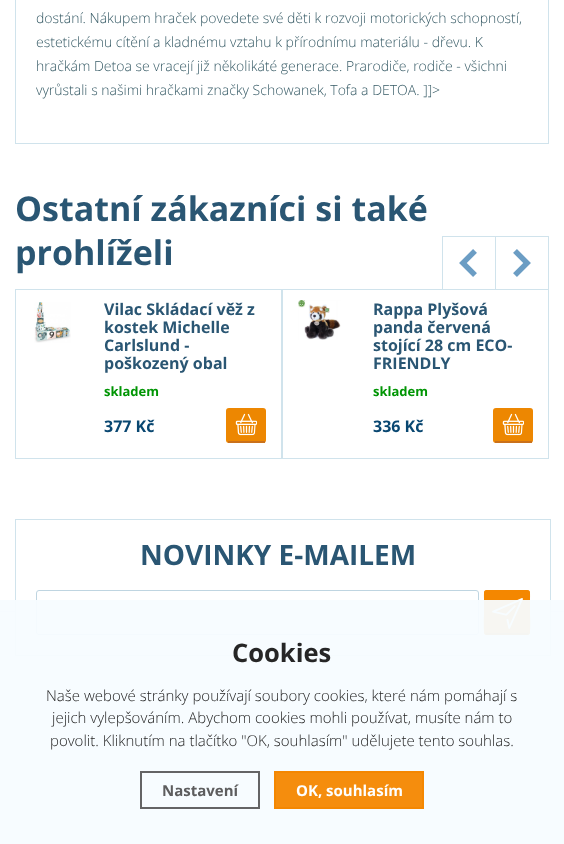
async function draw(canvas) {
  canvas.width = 564
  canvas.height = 844
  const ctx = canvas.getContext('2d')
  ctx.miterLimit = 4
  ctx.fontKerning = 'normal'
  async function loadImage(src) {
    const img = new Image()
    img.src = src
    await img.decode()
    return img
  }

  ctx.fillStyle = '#fff'
  ctx.fillRect(0, 0, 564, 844)
  ctx.strokeStyle = '#d0e3ec'
  ctx.strokeRect(15.5, -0.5, 533, 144)
  ctx.font = '300 14px Open Sans'
  ctx.fillStyle = '#375b66'
  ctx.fillText('dostání. Nákupem hraček povedete své děti k rozvoji motorických schopností,', 36, 23)
  ctx.fillText('estetickému cítění a kladnému vztahu k přírodnímu materiálu - dřevu. K', 36, 47)
  ctx.fillText('hračkám Detoa se vracejí již několikáté generace. Prarodiče, rodiče - všichni', 36, 71)
  ctx.fillText('vyrůstali s našimi hračkami značky Schowanek, Tofa a DETOA. ]]>', 36, 95)
  ctx.font = 'bold 34px Open Sans'
  ctx.fillStyle = '#2a5673'
  ctx.fillText('Ostatní zákazníci si také', 15, 221)
  ctx.fillText('prohlíželi', 15, 265)
  ctx.strokeRect(282.5, 289.5, 266, 169)
  ctx.strokeRect(442.5, 236.5, 53, 53)
  ctx.drawImage(await loadImage('image0.png'), 459, 249, 18, 28)
  ctx.strokeRect(495.5, 236.5, 53, 53)
  ctx.drawImage(await loadImage('image1.png'), 513, 249, 18, 28)
  ctx.strokeRect(15.5, 289.5, 266, 169)
  ctx.drawImage(await loadImage('image2.png'), 34, 302, 37, 41)
  ctx.font = 'bold 16px Open Sans'
  ctx.fillText('Vilac Skládací věž z', 104, 315)
  ctx.fillText('kostek Michelle', 104, 333)
  ctx.fillText('Carlslund -', 104, 351)
  ctx.fillText('poškozený obal', 104, 369)
  ctx.font = 'bold 13px Open Sans'
  ctx.fillStyle = '#009504'
  ctx.fillText('skladem', 104, 396)
  ctx.font = 'bold 16px Open Sans'
  ctx.fillStyle = '#094771'
  ctx.fillText('377 Kč', 104, 432)
  ctx.fillStyle = '#ed8701'
  ctx.beginPath()
  ctx.roundRect(226, 408, 40, 35, 3)
  ctx.fill()
  ctx.fillStyle = '#ca711b'
  ctx.fillRect(228, 441, 37, 2)
  ctx.drawImage(await loadImage('image3.png'), 235, 413, 22, 23)
  ctx.drawImage(await loadImage('image4.png'), 298, 300, 43, 40)
  ctx.fillStyle = '#2a5673'
  ctx.fillText('Rappa Plyšová', 373, 315)
  ctx.fillText('panda červená', 373, 333)
  ctx.fillText('stojící 28 cm ECO-', 373, 351)
  ctx.fillText('FRIENDLY', 373, 369)
  ctx.font = 'bold 13px Open Sans'
  ctx.fillStyle = '#009504'
  ctx.fillText('skladem', 373, 396)
  ctx.font = 'bold 16px Open Sans'
  ctx.fillStyle = '#094771'
  ctx.fillText('336 Kč', 373, 432)
  ctx.fillStyle = '#ed8701'
  ctx.beginPath()
  ctx.roundRect(493, 408, 40, 35, 3)
  ctx.fill()
  ctx.fillStyle = '#ca711b'
  ctx.fillRect(495, 441, 37, 2)
  ctx.drawImage(await loadImage('image3.png'), 502, 413, 22, 23)
  ctx.fillStyle = '#f0fbff'
  ctx.fillRect(0, 612, 564, 232)
  ctx.fillStyle = '#e0edf2'
  ctx.fillRect(0, 611, 564, 1)
  ctx.fillStyle = '#fff'
  ctx.fillRect(16, 611, 534, 44)
  ctx.strokeRect(15.5, 519.5, 535, 136)
  ctx.font = 'bold 28px Open Sans'
  ctx.fillStyle = '#2a5673'
  ctx.fillText('NOVINKY E-MAILEM', 140, 565)
  ctx.beginPath()
  ctx.roundRect(36.5, 590.5, 442, 44, 2.5)
  ctx.strokeStyle = '#bfd5e1'
  ctx.stroke()
  ctx.fillStyle = '#f48700'
  ctx.beginPath()
  ctx.roundRect(484, 590, 46, 45, 3)
  ctx.fill()
  ctx.beginPath()
  ctx.moveTo(528.5, 633.5)
  ctx.lineTo(527, 634)
  ctx.lineTo(487, 634)
  ctx.lineTo(485.5, 633.5)
  ctx.strokeStyle = '#cb7000'
  ctx.lineWidth = 2
  ctx.stroke()
  ctx.beginPath()
  ctx.moveTo(485.5, 633.5)
  ctx.bezierCurveTo(484, 632, 485, 615.5, 485, 612.5)
  ctx.lineTo(485, 599.5)
  ctx.bezierCurveTo(485, 589.5, 483.5, 591, 493.5, 591)
  ctx.lineTo(520.5, 591)
  ctx.bezierCurveTo(530.5, 591, 529, 589.5, 529, 599.5)
  ctx.lineTo(529, 612.5)
  ctx.bezierCurveTo(529, 615.5, 530, 632, 528.5, 633.5)
  ctx.strokeStyle = '#f48700'
  ctx.stroke()
  ctx.drawImage(await loadImage('image5.png'), 492, 598, 31, 31)
  ctx.fillStyle = '#f7fcfff2'
  ctx.fillRect(0, 600, 564, 244)
  ctx.font = 'bold 25.5px Open Sans'
  ctx.fillStyle = '#262626'
  ctx.fillText('Cookies', 232, 662)
  ctx.font = '300 15px Open Sans'
  ctx.fillText('Naše webové stránky používají soubory cookies, které nám pomáhají s', 46, 701)
  ctx.fillText('jejich vylepšováním. Abychom cookies mohli používat, musíte nám to', 52, 723)
  ctx.fillText('povolit. Kliknutím na tlačítko "OK, souhlasím" udělujete tento souhlas.', 50, 746)
  ctx.strokeStyle = '#5c5c5df2'
  ctx.strokeRect(141, 772, 118, 36)
  ctx.font = 'bold 15px Open Sans'
  ctx.fillStyle = '#5d5d5e'
  ctx.fillText('Nastavení', 162, 796)
  ctx.fillStyle = '#f48700f2'
  ctx.beginPath()
  ctx.rect(275, 772, 148, 36)
  ctx.fill()
  ctx.strokeStyle = '#f48701'
  ctx.stroke()
  ctx.fillStyle = '#feffff'
  ctx.fillText('OK, souhlasím', 296, 796)
}

draw(document.querySelector('canvas'))
